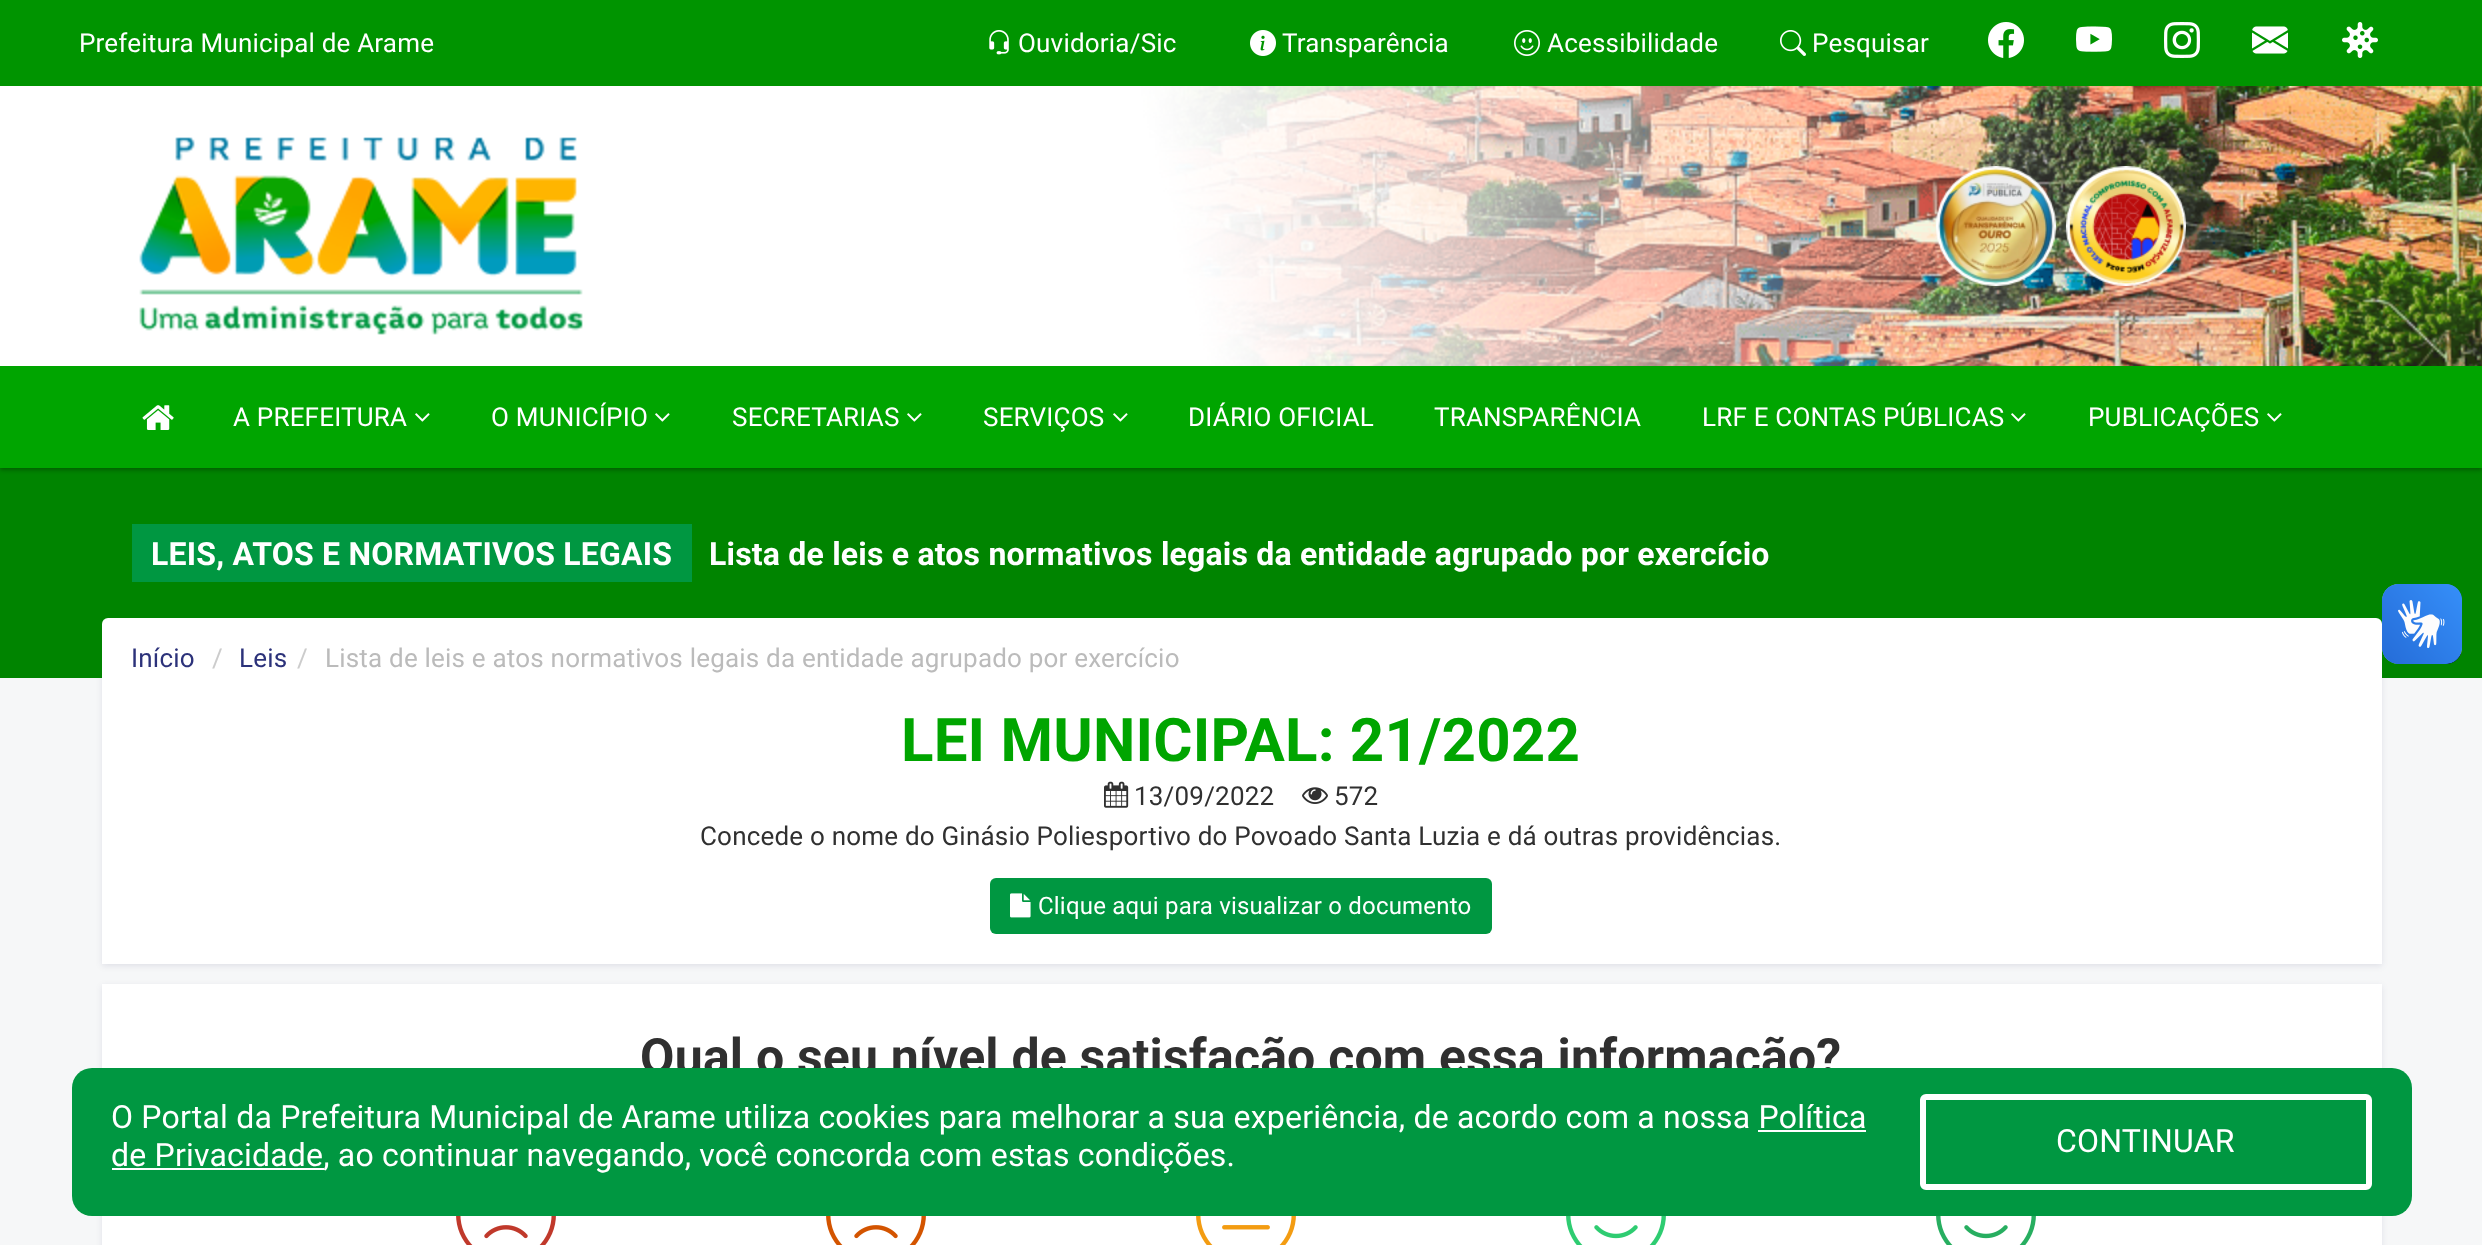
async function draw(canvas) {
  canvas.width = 2482
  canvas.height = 1245
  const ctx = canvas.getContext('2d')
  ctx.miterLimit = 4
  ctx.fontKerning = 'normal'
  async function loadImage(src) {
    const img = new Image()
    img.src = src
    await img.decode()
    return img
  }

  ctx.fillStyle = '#f6f7f8'
  ctx.fillRect(0, 0, 2482, 1245)
  ctx.fillStyle = '#03004717'
  ctx.filter = 'blur(3px)'
  ctx.beginPath()
  ctx.rect(102, 620, 2280, 346)
  ctx.fill()
  ctx.filter = 'none'
  ctx.fillStyle = '#008400'
  ctx.fillRect(0, 468, 2482, 210)
  ctx.fillStyle = '#0000004d'
  ctx.filter = 'blur(2px)'
  ctx.beginPath()
  ctx.rect(0, 2, 2482, 468)
  ctx.fill()
  ctx.filter = 'none'
  ctx.drawImage(await loadImage('image0.png'), 0, 86, 2482, 280)
  ctx.fillStyle = '#009400'
  ctx.fillRect(0, 0, 2482, 86)
  ctx.letterSpacing = '0.2px'
  ctx.font = '26px Roboto'
  ctx.fillStyle = '#fff'
  ctx.fillText('Prefeitura Municipal de Arame', 79, 52)
  ctx.drawImage(await loadImage('image1.png'), 989, 30, 20, 25)
  ctx.fillText('Ouvidoria/Sic', 1018, 52)
  ctx.drawImage(await loadImage('image2.png'), 1250, 30, 26, 26)
  ctx.fillText('Transparência', 1282, 52)
  ctx.drawImage(await loadImage('image3.png'), 1514, 30, 26, 26)
  ctx.fillText('Acessibilidade', 1547, 52)
  ctx.drawImage(await loadImage('image4.png'), 1780, 30, 26, 26)
  ctx.fillText('Pesquisar', 1812, 52)
  ctx.drawImage(await loadImage('image5.png'), 1988, 22, 36, 36)
  ctx.drawImage(await loadImage('image6.png'), 2076, 26, 36, 26)
  ctx.drawImage(await loadImage('image7.png'), 2164, 22, 36, 36)
  ctx.drawImage(await loadImage('image8.png'), 2252, 26, 36, 28)
  ctx.drawImage(await loadImage('image9.png'), 2342, 22, 36, 36)
  ctx.drawImage(await loadImage('image10.png'), 139, 137, 444, 198)
  ctx.drawImage(await loadImage('image11.png'), 1936, 166, 120, 120)
  ctx.drawImage(await loadImage('image12.png'), 2066, 166, 120, 120)
  ctx.fillStyle = '#00a500'
  ctx.fillRect(0, 366, 2482, 102)
  ctx.drawImage(await loadImage('image13.png'), 142, 405, 32, 25)
  ctx.fillStyle = '#fff'
  ctx.fillText('A PREFEITURA', 233, 426)
  ctx.drawImage(await loadImage('image14.png'), 415, 413, 15, 9)
  ctx.fillText('O MUNICÍPIO', 491, 426)
  ctx.drawImage(await loadImage('image14.png'), 655, 413, 15, 9)
  ctx.fillText('SECRETARIAS', 732, 426)
  ctx.drawImage(await loadImage('image14.png'), 907, 413, 15, 9)
  ctx.fillText('SERVIÇOS', 983, 426)
  ctx.drawImage(await loadImage('image14.png'), 1113, 413, 15, 9)
  ctx.fillText('DIÁRIO OFICIAL', 1188, 426)
  ctx.fillText('TRANSPARÊNCIA', 1434, 426)
  ctx.fillText('LRF E CONTAS PÚBLICAS', 1702, 426)
  ctx.drawImage(await loadImage('image14.png'), 2011, 413, 15, 9)
  ctx.fillText('PUBLICAÇÕES', 2088, 426)
  ctx.drawImage(await loadImage('image14.png'), 2267, 413, 15, 9)
  ctx.fillStyle = '#009741'
  ctx.fillRect(132, 524, 560, 58)
  ctx.font = 'bold 32px Roboto'
  ctx.fillStyle = '#fff'
  ctx.fillText('LEIS, ATOS E NORMATIVOS LEGAIS', 151, 565)
  ctx.fillText('Lista de leis e atos normativos legais da entidade agrupado por exercício', 709, 565)
  ctx.drawImage(await loadImage('image15.png'), 2382, 584, 80, 80)
  ctx.drawImage(await loadImage('image16.png'), 2382, 584, 80, 80)
  ctx.fillRect(102, 692, 2280, 272)
  ctx.beginPath()
  ctx.roundRect(102, 618, 2280, 80, 6)
  ctx.fill()
  ctx.font = '26px Roboto'
  ctx.fillStyle = '#2c327a'
  ctx.fillText('Início', 131, 667)
  ctx.fillStyle = '#ccc'
  ctx.fillText('/', 212, 667)
  ctx.fillStyle = '#2c327a'
  ctx.fillText('Leis', 239, 667)
  ctx.fillStyle = '#ccc'
  ctx.fillText('/', 297, 667)
  ctx.fillStyle = '#bbb'
  ctx.fillText('Lista de leis e atos normativos legais da entidade agrupado por exercício', 325, 667)
  ctx.font = 'bold 60px Roboto'
  ctx.fillStyle = '#00a500'
  ctx.fillText('LEI MUNICIPAL: 21/2022', 901, 761)
  ctx.drawImage(await loadImage('image17.png'), 1104, 781, 25, 27)
  ctx.font = '26px Roboto'
  ctx.fillStyle = '#303030'
  ctx.fillText('13/09/2022', 1134, 805)
  ctx.drawImage(await loadImage('image18.png'), 1302, 787, 26, 17)
  ctx.fillText('572', 1334, 805)
  ctx.fillText('Concede o nome do Ginásio Poliesportivo do Povoado Santa Luzia e dá outras providências.', 700, 845)
  ctx.fillStyle = '#009741'
  ctx.beginPath()
  ctx.roundRect(990, 878, 502, 56, 6)
  ctx.fill()
  ctx.drawImage(await loadImage('image19.png'), 1010, 893, 21, 25)
  ctx.font = '24px Roboto'
  ctx.fillStyle = '#fff'
  ctx.fillText('Clique aqui para visualizar o documento', 1038, 914)
  ctx.fillStyle = '#03004717'
  ctx.filter = 'blur(3px)'
  ctx.beginPath()
  ctx.rect(102, 986, 2280, 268)
  ctx.fill()
  ctx.filter = 'none'
  ctx.fillStyle = '#fff'
  ctx.fillRect(102, 984, 2280, 261)
  ctx.font = 'bold 50px Roboto'
  ctx.fillStyle = '#303030'
  ctx.fillText('Qual o seu nível de satisfação com essa informação?', 640, 1074)
  ctx.drawImage(await loadImage('image20.png'), 456, 1216, 100, 29)
  ctx.drawImage(await loadImage('image21.png'), 826, 1216, 100, 29)
  ctx.drawImage(await loadImage('image22.png'), 1196, 1216, 100, 29)
  ctx.drawImage(await loadImage('image23.png'), 1566, 1216, 100, 29)
  ctx.drawImage(await loadImage('image24.png'), 1936, 1216, 100, 29)
  ctx.fillStyle = '#009741'
  ctx.beginPath()
  ctx.roundRect(72, 1068, 2340, 148, 20)
  ctx.fill()
  ctx.font = '32px Roboto'
  ctx.fillStyle = '#fff'
  ctx.fillText('O Portal da Prefeitura Municipal de Arame utiliza cookies para melhorar a sua experiência, de acordo com a nossa Política', 111, 1128)
  ctx.fillRect(112, 1168, 212, 2)
  ctx.fillText('de Privacidade, ao continuar navegando, você concorda com estas condições.', 111, 1166)
  ctx.fillRect(1758, 1130, 108, 2)
  ctx.beginPath()
  ctx.roundRect(1923, 1097, 446, 90, 3)
  ctx.strokeStyle = '#fff'
  ctx.lineWidth = 6
  ctx.stroke()
  ctx.fillText('CONTINUAR', 2056, 1152)
}

draw(document.querySelector('canvas'))
